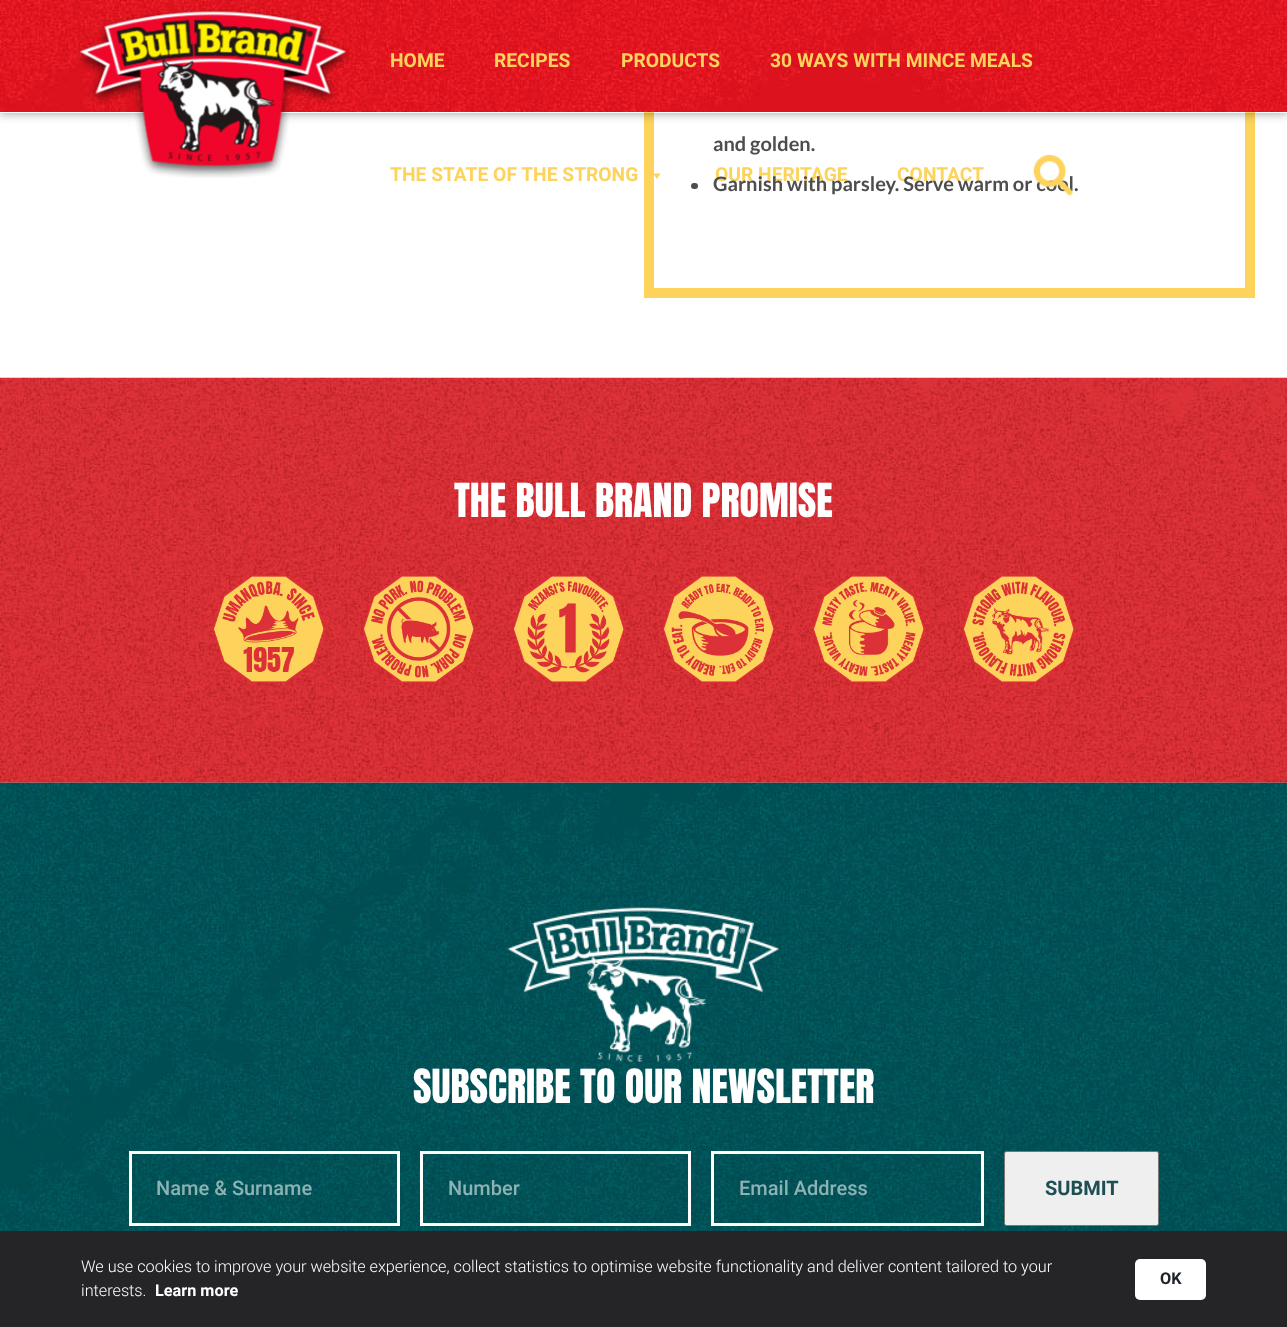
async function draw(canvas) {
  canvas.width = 1287
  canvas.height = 1327
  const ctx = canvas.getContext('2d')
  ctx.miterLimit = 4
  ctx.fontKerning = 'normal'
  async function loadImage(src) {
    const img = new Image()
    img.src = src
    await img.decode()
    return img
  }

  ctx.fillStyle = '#fff'
  ctx.fillRect(0, 0, 1287, 1327)
  ctx.strokeStyle = '#fdd35c'
  ctx.lineWidth = 10
  ctx.strokeRect(649, -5, 601, 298)
  ctx.drawImage(await loadImage('image0.png'), 0, 0, 1287, 112)
  ctx.save()
  ctx.beginPath()
  ctx.moveTo(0, 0)
  ctx.lineTo(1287, 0)
  ctx.lineTo(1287, 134)
  ctx.lineTo(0, 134)
  ctx.closePath()
  ctx.moveTo(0, 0)
  ctx.lineTo(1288, 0)
  ctx.lineTo(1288, 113)
  ctx.lineTo(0, 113)
  ctx.closePath()
  ctx.clip('evenodd')
  ctx.fillStyle = '#0000001f'
  ctx.filter = 'blur(6px)'
  ctx.beginPath()
  ctx.rect(0, 3, 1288, 112)
  ctx.fill()
  ctx.filter = 'none'
  ctx.restore()
  ctx.save()
  ctx.beginPath()
  ctx.moveTo(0, 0)
  ctx.lineTo(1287, 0)
  ctx.lineTo(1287, 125)
  ctx.lineTo(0, 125)
  ctx.closePath()
  ctx.moveTo(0, 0)
  ctx.lineTo(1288, 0)
  ctx.lineTo(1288, 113)
  ctx.lineTo(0, 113)
  ctx.closePath()
  ctx.clip('evenodd')
  ctx.fillStyle = '#00000029'
  ctx.filter = 'blur(3px)'
  ctx.beginPath()
  ctx.rect(0, 3, 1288, 112)
  ctx.fill()
  ctx.filter = 'none'
  ctx.restore()
  ctx.drawImage(await loadImage('image1.png'), 76, 9, 274, 169)
  ctx.font = 'bold 19.25px Roboto'
  ctx.fillStyle = '#fdd35c'
  ctx.fillText('HOME', 390, 67)
  ctx.fillText('RECIPES', 494, 67)
  ctx.fillText('PRODUCTS', 621, 67)
  ctx.fillText('30 WAYS WITH MINCE MEALS', 770, 67)
  ctx.fillText('THE STATE OF THE STRONG', 390, 181)
  ctx.beginPath()
  ctx.moveTo(660.5, 173.5)
  ctx.lineTo(657, 179)
  ctx.lineTo(653, 173.5)
  ctx.closePath()
  ctx.fill()
  ctx.fillText('OUR HERITAGE', 715, 181)
  ctx.fillText('CONTACT', 897, 181)
  ctx.font = 'bold 20px Lato'
  ctx.fillStyle = '#4d4d4d'
  ctx.fillText('Garnish with parsley. Serve warm or cool.', 713, 191)
  ctx.drawImage(await loadImage('image2.png'), 1033, 155, 40, 41)
  ctx.fillText('and golden.', 713, 151)
  ctx.beginPath()
  ctx.roundRect(691, 183, 7, 6, 3)
  ctx.fill()
  ctx.drawImage(await loadImage('image3.png'), 0, 377, 1287, 406)
  ctx.font = '40px Anton'
  ctx.fillStyle = '#fff'
  ctx.fillText('THE BULL BRAND PROMISE', 454, 517)
  ctx.drawImage(await loadImage('image4.png'), 213, 575, 112, 108)
  ctx.drawImage(await loadImage('image5.png'), 362, 575, 113, 108)
  ctx.drawImage(await loadImage('image6.png'), 513, 575, 112, 108)
  ctx.drawImage(await loadImage('image7.png'), 662, 575, 113, 108)
  ctx.drawImage(await loadImage('image8.png'), 813, 575, 112, 108)
  ctx.drawImage(await loadImage('image9.png'), 962, 575, 113, 108)
  ctx.drawImage(await loadImage('image10.png'), 0, 782, 1287, 449)
  ctx.drawImage(await loadImage('image11.png'), 507, 907, 272, 155)
  ctx.fillText('SUBSCRIBE TO OUR NEWSLETTER', 413, 1103)
  ctx.strokeStyle = '#fff'
  ctx.lineWidth = 3
  ctx.strokeRect(130.5, 1152.5, 268, 72)
  ctx.font = '500 20px Roboto'
  ctx.fillStyle = '#8db2b4'
  ctx.fillText('Name & Surname', 156, 1195)
  ctx.strokeRect(421.5, 1152.5, 268, 72)
  ctx.fillText('Number', 448, 1195)
  ctx.strokeRect(712.5, 1152.5, 270, 72)
  ctx.fillText('Email Address', 739, 1195)
  ctx.fillStyle = '#efefef'
  ctx.beginPath()
  ctx.roundRect(1004.5, 1151.5, 154, 74, 2)
  ctx.fill()
  ctx.strokeStyle = '#767676'
  ctx.lineWidth = 1
  ctx.stroke()
  ctx.font = 'bold 20px Roboto'
  ctx.fillStyle = '#1e4f52'
  ctx.fillText('SUBMIT', 1045, 1195)
  ctx.fillStyle = '#252528'
  ctx.fillRect(0, 1231, 1287, 96)
  ctx.font = '300 16.25px Roboto'
  ctx.fillStyle = '#fff'
  ctx.fillText('We use cookies to improve your website experience, collect statistics to optimise website functionality and deliver content tailored to your', 81, 1272)
  ctx.fillText('interests.', 81, 1296)
  ctx.font = 'bold 16.25px Roboto'
  ctx.fillText('Learn more', 155, 1296)
  ctx.beginPath()
  ctx.roundRect(1135, 1259, 71, 41, 5)
  ctx.fill()
  ctx.fillStyle = '#1d2129'
  ctx.fillText('OK', 1160, 1284)
}

draw(document.querySelector('canvas'))
